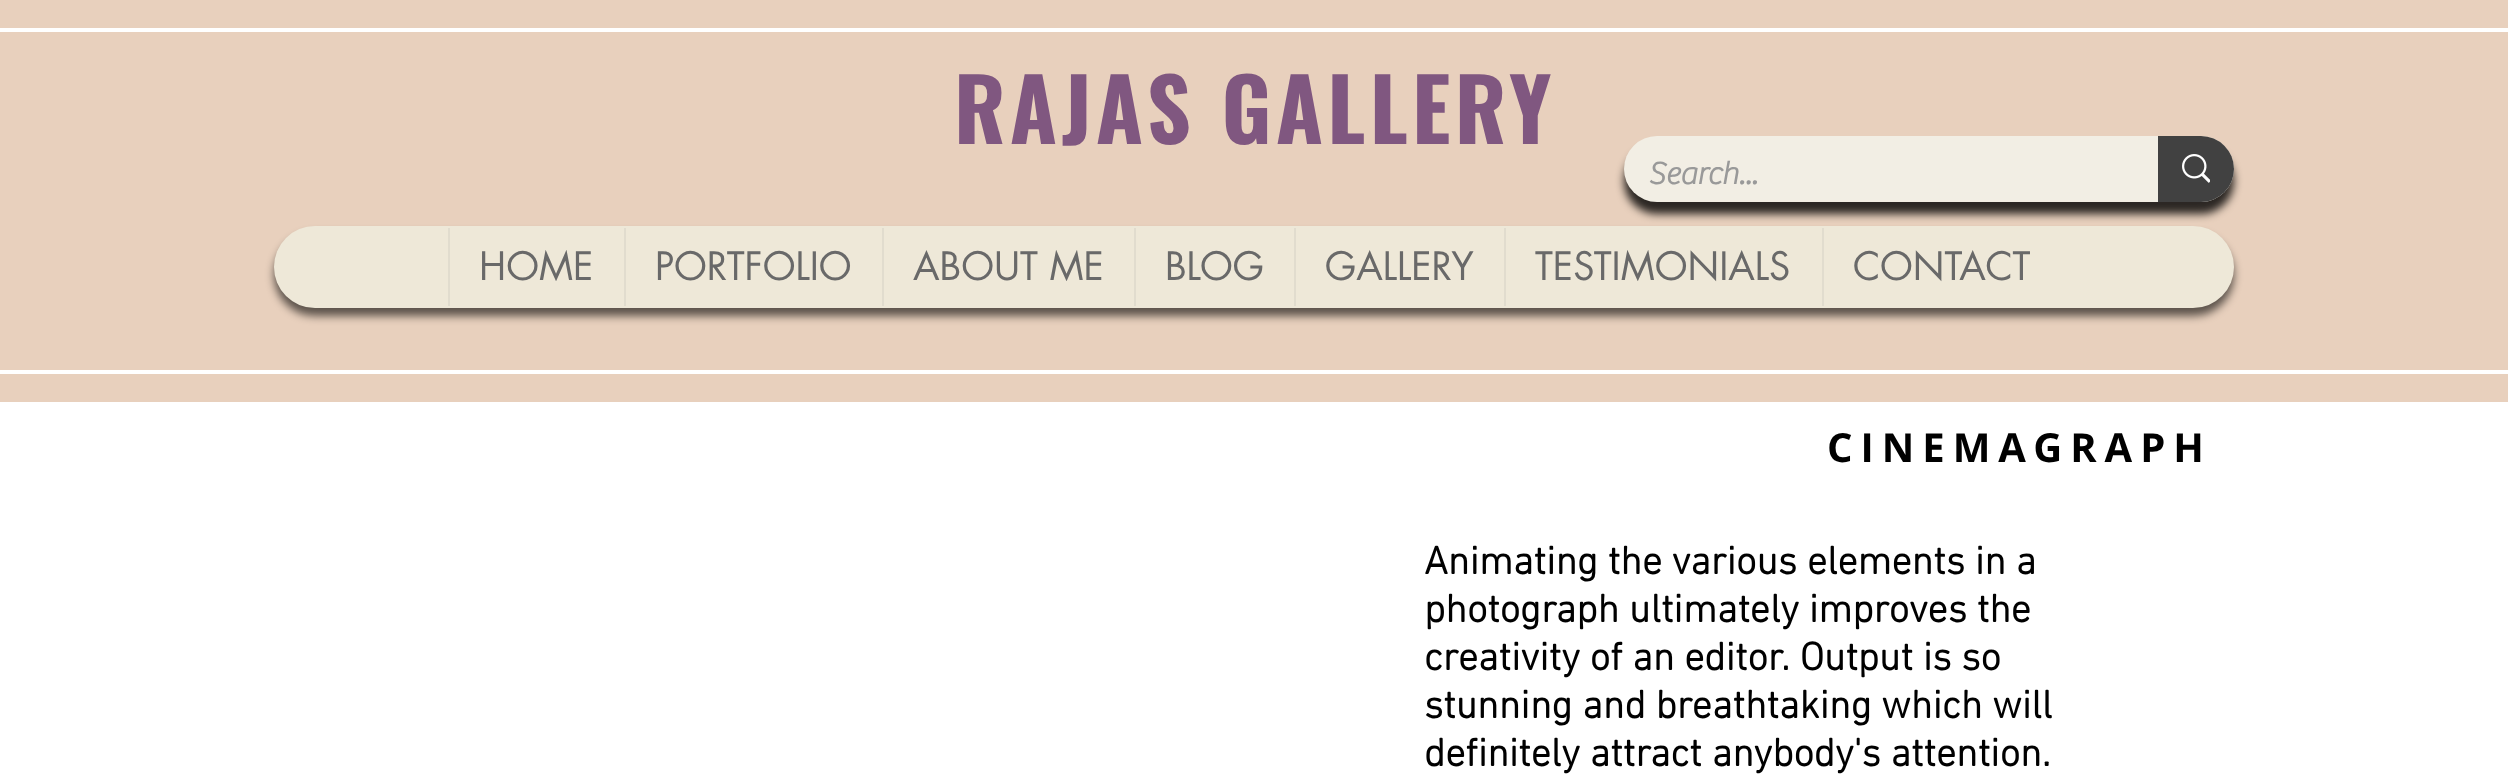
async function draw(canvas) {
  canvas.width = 2508
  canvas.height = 782
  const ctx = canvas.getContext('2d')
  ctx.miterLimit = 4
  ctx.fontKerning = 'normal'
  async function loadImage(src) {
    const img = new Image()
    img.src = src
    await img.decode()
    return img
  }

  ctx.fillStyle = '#fff'
  ctx.fillRect(0, 0, 2508, 782)
  ctx.fillStyle = '#e8d0bd'
  ctx.fillRect(0, 0, 2508, 402)
  ctx.fillStyle = '#fff'
  ctx.fillRect(0, 28, 2508, 4)
  ctx.fillRect(0, 370, 2508, 4)
  ctx.letterSpacing = '4.25px'
  ctx.font = 'bold 86px Oswald'
  ctx.fillStyle = '#805780'
  ctx.fillText('RAJAS GALLERY', 954, 144)
  ctx.fillStyle = '#000000cf'
  ctx.filter = 'blur(4px)'
  ctx.beginPath()
  ctx.roundRect(1624, 148, 610, 66, 33)
  ctx.fill()
  ctx.filter = 'none'
  ctx.fillStyle = '#f2eee4'
  ctx.beginPath()
  ctx.roundRect(1624, 136, 610, 66, 33)
  ctx.fill()
  ctx.letterSpacing = '0px'
  ctx.font = 'bold 32px "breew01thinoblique"'
  ctx.fillStyle = '#999'
  ctx.fillText('Search...', 1648, 184)
  ctx.fillStyle = '#414141'
  ctx.beginPath()
  ctx.roundRect(2158, 136, 76, 66, [0, 33, 33, 0])
  ctx.fill()
  ctx.drawImage(await loadImage('image0.png'), 2182, 154, 28, 29)
  ctx.fillStyle = '#00000099'
  ctx.filter = 'blur(4px)'
  ctx.beginPath()
  ctx.roundRect(274, 234, 1960, 82, 41)
  ctx.fill()
  ctx.filter = 'none'
  ctx.fillStyle = '#eee8d8'
  ctx.beginPath()
  ctx.roundRect(274, 226, 1960, 82, 41)
  ctx.fill()
  ctx.fillStyle = '#e1dcce'
  ctx.fillRect(448, 228, 2, 78)
  ctx.font = '38px futura'
  ctx.fillStyle = '#696969'
  ctx.fillText('HOME', 479, 280)
  ctx.fillStyle = '#e1dcce'
  ctx.fillRect(624, 228, 2, 78)
  ctx.fillStyle = '#696969'
  ctx.fillText('PORTFOLIO', 655, 280)
  ctx.fillStyle = '#e1dcce'
  ctx.fillRect(882, 228, 2, 78)
  ctx.fillStyle = '#696969'
  ctx.fillText('ABOUT ME', 913, 280)
  ctx.fillStyle = '#e1dcce'
  ctx.fillRect(1134, 228, 2, 78)
  ctx.fillStyle = '#696969'
  ctx.fillText('BLOG', 1165, 280)
  ctx.fillStyle = '#e1dcce'
  ctx.fillRect(1294, 228, 2, 78)
  ctx.fillStyle = '#696969'
  ctx.fillText('GALLERY', 1325, 280)
  ctx.fillStyle = '#e1dcce'
  ctx.fillRect(1504, 228, 2, 78)
  ctx.fillStyle = '#696969'
  ctx.fillText('TESTIMONIALS', 1535, 280)
  ctx.fillStyle = '#e1dcce'
  ctx.fillRect(1822, 228, 2, 78)
  ctx.fillStyle = '#696969'
  ctx.fillText('CONTACT', 1853, 280)
  ctx.letterSpacing = '8px'
  ctx.font = 'bold 40px Open Sans'
  ctx.fillStyle = '#000'
  ctx.fillText('CINEMAGRAPH', 1827, 462)
  ctx.letterSpacing = '0px'
  ctx.font = 'bold 40px "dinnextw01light"'
  ctx.fillText('Animating the various elements in a', 1424, 574)
  ctx.fillText('photograph ultimately improves the', 1424, 622)
  ctx.fillText('creativity of an editor. Output is so', 1424, 670)
  ctx.fillText('stunning and breathtaking which will', 1424, 718)
  ctx.fillText('definitely attract anybody\'s attention.', 1424, 766)
}

draw(document.querySelector('canvas'))
